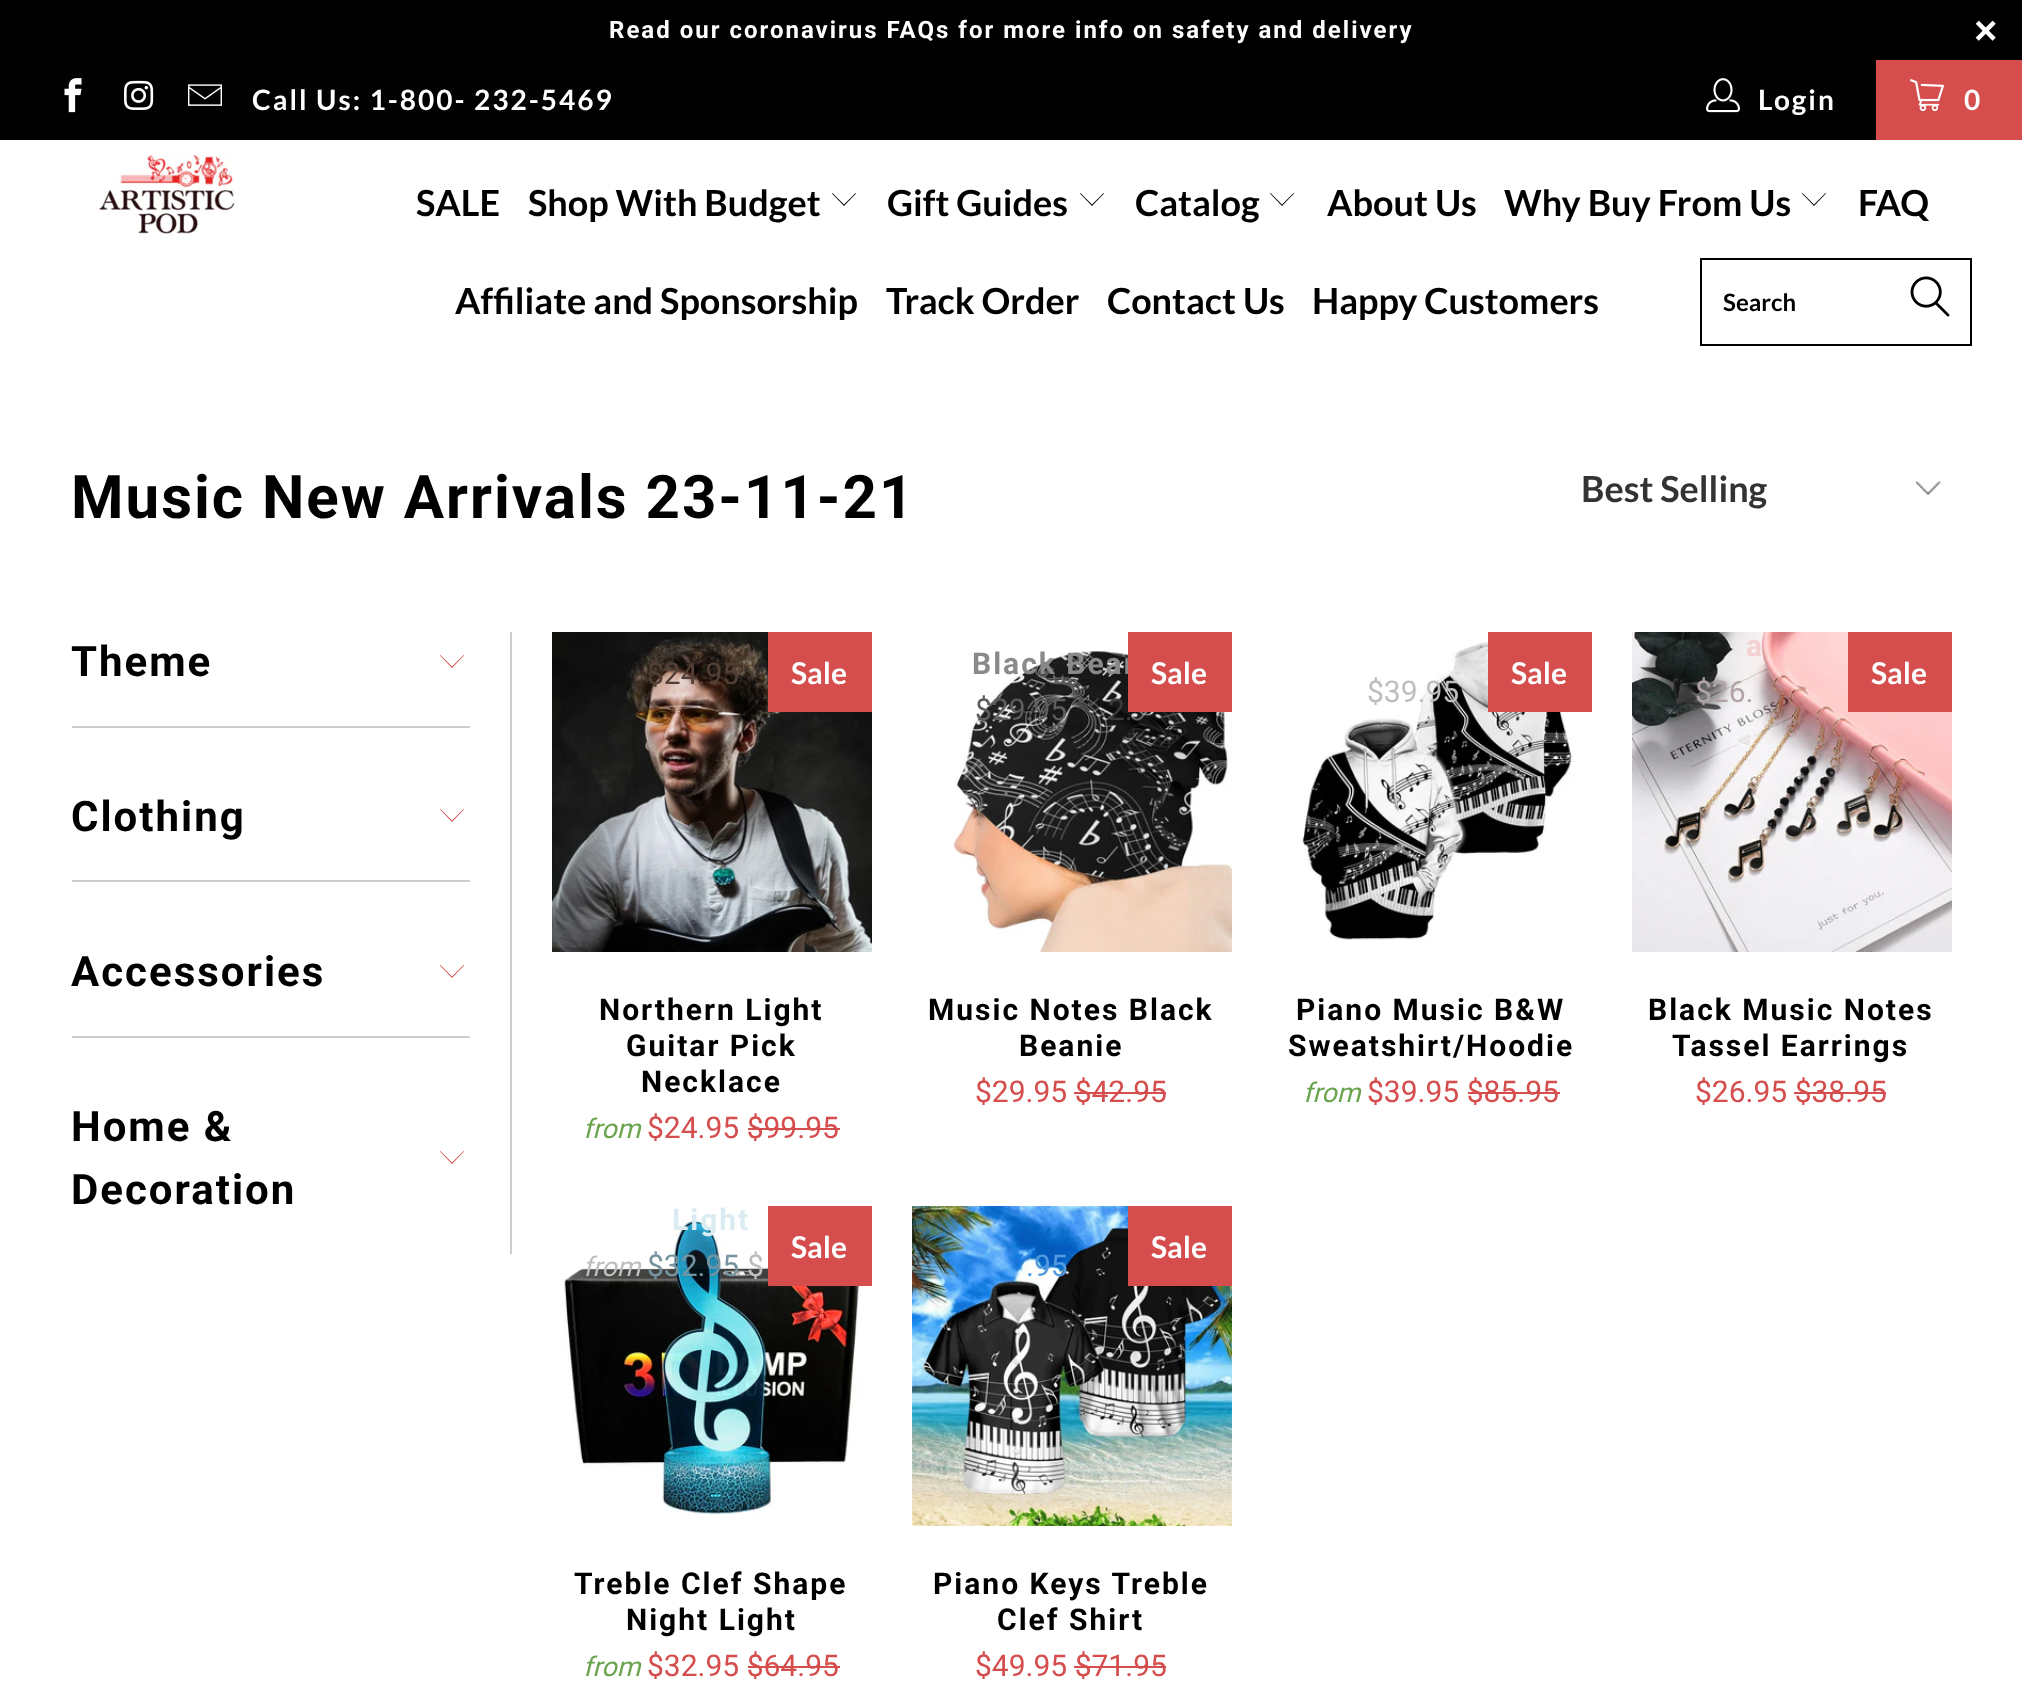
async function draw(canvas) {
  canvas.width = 2022
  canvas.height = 1694
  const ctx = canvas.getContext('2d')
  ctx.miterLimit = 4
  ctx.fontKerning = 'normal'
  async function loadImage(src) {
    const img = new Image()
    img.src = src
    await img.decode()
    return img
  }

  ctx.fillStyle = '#fff'
  ctx.fillRect(0, 0, 2022, 1694)
  ctx.fillStyle = '#000'
  ctx.fillRect(0, 0, 2022, 60)
  ctx.letterSpacing = '2px'
  ctx.font = 'bold 24px Roboto'
  ctx.fillStyle = '#fff'
  ctx.fillText('Read our coronavirus FAQs for more info on safety and delivery', 609, 38)
  ctx.font = 'bold 40px Liberation Sans'
  ctx.fillText('×', 1974, 44)
  ctx.fillStyle = '#010101'
  ctx.fillRect(0, 60, 1876, 80)
  ctx.drawImage(await loadImage('image0.png'), 64, 78, 18, 35)
  ctx.drawImage(await loadImage('image1.png'), 124, 80, 30, 30)
  ctx.drawImage(await loadImage('image2.png'), 188, 84, 34, 22)
  ctx.font = 'bold 28px Lato'
  ctx.fillStyle = '#fff'
  ctx.fillText('Call Us: 1-800- 232-5469', 252, 110)
  ctx.drawImage(await loadImage('image3.png'), 1706, 78, 34, 35)
  ctx.fillText('Login', 1758, 110)
  ctx.fillStyle = '#d54d4d'
  ctx.fillRect(1876, 60, 146, 80)
  ctx.drawImage(await loadImage('image4.png'), 1910, 79, 34, 33)
  ctx.fillStyle = '#fff'
  ctx.fillText('0', 1964, 110)
  ctx.drawImage(await loadImage('image5.png'), 99, 154, 136, 80)
  ctx.letterSpacing = '0px'
  ctx.font = 'bold 36px Lato'
  ctx.fillStyle = '#000'
  ctx.fillText('SALE', 416, 216)
  ctx.fillText('Shop With Budget', 528, 216)
  ctx.beginPath()
  ctx.moveTo(844, 206)
  ctx.lineTo(832, 193.5)
  ctx.lineTo(832.5, 193)
  ctx.lineTo(844, 204.5)
  ctx.lineTo(855.5, 193)
  ctx.lineTo(856, 193.5)
  ctx.closePath()
  ctx.fill()
  ctx.fillText('Gift Guides', 887, 216)
  ctx.beginPath()
  ctx.moveTo(1092, 206)
  ctx.lineTo(1080, 193.5)
  ctx.lineTo(1080.5, 193)
  ctx.lineTo(1092, 204.5)
  ctx.lineTo(1103.5, 193)
  ctx.lineTo(1104, 193.5)
  ctx.closePath()
  ctx.fill()
  ctx.fillText('Catalog', 1135, 216)
  ctx.beginPath()
  ctx.moveTo(1282, 206)
  ctx.lineTo(1270, 193.5)
  ctx.lineTo(1270.5, 193)
  ctx.lineTo(1282, 204.5)
  ctx.lineTo(1293.5, 193)
  ctx.lineTo(1294, 193.5)
  ctx.closePath()
  ctx.fill()
  ctx.fillText('About Us', 1327, 216)
  ctx.fillText('Why Buy From Us', 1504, 216)
  ctx.beginPath()
  ctx.moveTo(1814, 206)
  ctx.lineTo(1802, 193.5)
  ctx.lineTo(1802.5, 193)
  ctx.lineTo(1814, 204.5)
  ctx.lineTo(1825.5, 193)
  ctx.lineTo(1826, 193.5)
  ctx.closePath()
  ctx.fill()
  ctx.fillText('FAQ', 1858, 216)
  ctx.fillText('Affiliate and Sponsorship', 455, 314)
  ctx.fillText('Track Order', 886, 314)
  ctx.fillText('Contact Us', 1107, 314)
  ctx.fillText('Happy Customers', 1312, 314)
  ctx.strokeStyle = '#000'
  ctx.lineWidth = 2
  ctx.strokeRect(1701, 259, 270, 86)
  ctx.font = 'bold 24px Lato'
  ctx.fillText('Search', 1723, 311)
  ctx.drawImage(await loadImage('image6.png'), 1910, 276, 40, 41)
  ctx.letterSpacing = '2px'
  ctx.font = 'bold 60px Roboto'
  ctx.fillText('Music New Arrivals 23-11-21', 71, 518)
  ctx.drawImage(await loadImage('image7.png'), 1916, 480, 25, 16)
  ctx.letterSpacing = '0px'
  ctx.font = 'bold 36px Lato'
  ctx.fillStyle = '#333'
  ctx.fillText('Best Selling', 1581, 502)
  ctx.fillStyle = '#ccc'
  ctx.fillRect(510, 632, 2, 622)
  ctx.fillRect(72, 726, 398, 2)
  ctx.letterSpacing = '2px'
  ctx.font = 'bold 42px Roboto'
  ctx.fillStyle = '#000'
  ctx.fillText('Theme', 71, 676)
  ctx.fillStyle = '#d54d4d'
  ctx.beginPath()
  ctx.moveTo(452, 668)
  ctx.lineTo(440, 655.5)
  ctx.lineTo(440.5, 655)
  ctx.lineTo(452, 666.5)
  ctx.lineTo(463.5, 655)
  ctx.lineTo(464, 655.5)
  ctx.closePath()
  ctx.fill()
  ctx.fillStyle = '#ccc'
  ctx.fillRect(72, 880, 398, 2)
  ctx.fillStyle = '#000'
  ctx.fillText('Clothing', 71, 831)
  ctx.fillStyle = '#d54d4d'
  ctx.beginPath()
  ctx.moveTo(452, 822)
  ctx.lineTo(440, 809.5)
  ctx.lineTo(440.5, 809)
  ctx.lineTo(452, 820.5)
  ctx.lineTo(463.5, 809)
  ctx.lineTo(464, 809.5)
  ctx.closePath()
  ctx.fill()
  ctx.fillStyle = '#ccc'
  ctx.fillRect(72, 1036, 398, 2)
  ctx.fillStyle = '#000'
  ctx.fillText('Accessories', 71, 986)
  ctx.fillStyle = '#d54d4d'
  ctx.beginPath()
  ctx.moveTo(452, 978)
  ctx.lineTo(440, 965.5)
  ctx.lineTo(440.5, 965)
  ctx.lineTo(452, 976.5)
  ctx.lineTo(463.5, 965)
  ctx.lineTo(464, 965.5)
  ctx.closePath()
  ctx.fill()
  ctx.fillStyle = '#000'
  ctx.fillText('Home &', 71, 1141)
  ctx.fillStyle = '#d54d4d'
  ctx.beginPath()
  ctx.moveTo(452, 1164)
  ctx.lineTo(440, 1151.5)
  ctx.lineTo(440.5, 1151)
  ctx.lineTo(452, 1162.5)
  ctx.lineTo(463.5, 1151)
  ctx.lineTo(464, 1151.5)
  ctx.closePath()
  ctx.fill()
  ctx.fillStyle = '#000'
  ctx.fillText('Decoration', 71, 1204)
  ctx.drawImage(await loadImage('image8.png'), 552, 632, 320, 320)
  ctx.letterSpacing = '0px'
  ctx.font = '30px Roboto'
  ctx.fillStyle = '#524037'
  ctx.fillText('$24.95', 647, 684)
  ctx.fillStyle = '#d54d4d'
  ctx.fillRect(768, 632, 104, 80)
  ctx.font = 'bold 30px Lato'
  ctx.fillStyle = '#fff'
  ctx.fillText('Sale', 791, 684)
  ctx.letterSpacing = '2px'
  ctx.font = 'bold 30px Roboto'
  ctx.fillStyle = '#000'
  ctx.fillText('Northern Light', 599, 1020)
  ctx.fillText('Guitar Pick', 626, 1056)
  ctx.fillText('Necklace', 641, 1092)
  ctx.letterSpacing = '0px'
  ctx.font = 'italic 27px Roboto'
  ctx.fillStyle = '#6aa44e'
  ctx.fillText('from', 583, 1138)
  ctx.font = '30px Roboto'
  ctx.fillStyle = '#d54d4d'
  ctx.fillText('$24.95 $99.95', 647, 1138)
  ctx.fillRect(748, 1128, 92, 2)
  ctx.drawImage(await loadImage('image9.png'), 953, 650, 279, 302)
  ctx.letterSpacing = '2px'
  ctx.font = 'bold 30px Roboto'
  ctx.fillStyle = '#8a8a8a'
  ctx.fillText('Black Bean', 972, 674)
  ctx.letterSpacing = '0px'
  ctx.font = '30px Roboto'
  ctx.fillStyle = '#5d5d5d'
  ctx.fillText('$29.95', 975, 720)
  ctx.fillStyle = '#3a3a3a'
  ctx.fillText('2.', 1108, 720)
  ctx.fillStyle = '#d54d4d'
  ctx.fillRect(1128, 632, 104, 80)
  ctx.font = 'bold 30px Lato'
  ctx.fillStyle = '#fff'
  ctx.fillText('Sale', 1151, 684)
  ctx.letterSpacing = '2px'
  ctx.font = 'bold 30px Roboto'
  ctx.fillStyle = '#000'
  ctx.fillText('Music Notes Black', 928, 1020)
  ctx.fillText('Beanie', 1019, 1056)
  ctx.letterSpacing = '0px'
  ctx.font = '30px Roboto'
  ctx.fillStyle = '#d54d4d'
  ctx.fillText('$29.95 $42.95', 975, 1102)
  ctx.fillRect(1074, 1092, 92, 2)
  ctx.drawImage(await loadImage('image10.png'), 1302, 641, 273, 299)
  ctx.fillRect(1488, 632, 104, 80)
  ctx.font = 'bold 30px Lato'
  ctx.fillStyle = '#fff'
  ctx.fillText('Sale', 1511, 684)
  ctx.font = '30px Roboto'
  ctx.fillStyle = '#bebebe'
  ctx.fillText('$39.95', 1367, 702)
  ctx.letterSpacing = '2px'
  ctx.font = 'bold 30px Roboto'
  ctx.fillStyle = '#000'
  ctx.fillText('Piano Music B&W', 1296, 1020)
  ctx.fillText('Sweatshirt/Hoodie', 1288, 1056)
  ctx.letterSpacing = '0px'
  ctx.font = 'italic 27px Roboto'
  ctx.fillStyle = '#6aa44e'
  ctx.fillText('from', 1303, 1102)
  ctx.font = '30px Roboto'
  ctx.fillStyle = '#d54d4d'
  ctx.fillText('$39.95 $85.95', 1367, 1102)
  ctx.fillRect(1468, 1092, 92, 2)
  ctx.drawImage(await loadImage('image11.png'), 1632, 632, 320, 320)
  ctx.letterSpacing = '2px'
  ctx.font = 'bold 30px Roboto'
  ctx.fillStyle = '#f4d1d1'
  ctx.fillText('a', 1746, 656)
  ctx.letterSpacing = '0px'
  ctx.font = '30px Roboto'
  ctx.fillStyle = '#b2a4a4'
  ctx.fillText('$26.', 1695, 702)
  ctx.fillStyle = '#d54d4d'
  ctx.fillRect(1848, 632, 104, 80)
  ctx.font = 'bold 30px Lato'
  ctx.fillStyle = '#fff'
  ctx.fillText('Sale', 1871, 684)
  ctx.letterSpacing = '2px'
  ctx.font = 'bold 30px Roboto'
  ctx.fillStyle = '#000'
  ctx.fillText('Black Music Notes', 1648, 1020)
  ctx.fillText('Tassel Earrings', 1672, 1056)
  ctx.letterSpacing = '0px'
  ctx.font = '30px Roboto'
  ctx.fillStyle = '#d54d4d'
  ctx.fillText('$26.95 $38.95', 1695, 1102)
  ctx.fillRect(1794, 1092, 92, 2)
  ctx.drawImage(await loadImage('image12.png'), 564, 1219, 296, 296)
  ctx.letterSpacing = '2px'
  ctx.font = 'bold 30px Roboto'
  ctx.fillStyle = '#daebf1'
  ctx.fillText('Light', 672, 1230)
  ctx.letterSpacing = '0px'
  ctx.font = 'italic 27px Roboto'
  ctx.fillStyle = '#bebebe'
  ctx.fillText('from', 583, 1276)
  ctx.font = '30px Roboto'
  ctx.fillStyle = '#76949f'
  ctx.fillText('$32.95', 647, 1276)
  ctx.fillStyle = '#bebebe'
  ctx.fillText('$', 747, 1276)
  ctx.fillStyle = '#d54d4d'
  ctx.fillRect(768, 1206, 104, 80)
  ctx.font = 'bold 30px Lato'
  ctx.fillStyle = '#fff'
  ctx.fillText('Sale', 791, 1258)
  ctx.letterSpacing = '2px'
  ctx.font = 'bold 30px Roboto'
  ctx.fillStyle = '#000'
  ctx.fillText('Treble Clef Shape', 574, 1594)
  ctx.fillText('Night Light', 626, 1630)
  ctx.letterSpacing = '0px'
  ctx.font = 'italic 27px Roboto'
  ctx.fillStyle = '#6aa44e'
  ctx.fillText('from', 583, 1676)
  ctx.font = '30px Roboto'
  ctx.fillStyle = '#d54d4d'
  ctx.fillText('$32.95 $64.95', 647, 1676)
  ctx.fillRect(748, 1666, 92, 2)
  ctx.drawImage(await loadImage('image13.png'), 912, 1206, 320, 320)
  ctx.fillRect(1128, 1206, 104, 80)
  ctx.font = 'bold 30px Lato'
  ctx.fillStyle = '#fff'
  ctx.fillText('Sale', 1151, 1258)
  ctx.font = '30px Roboto'
  ctx.fillStyle = '#539ae1'
  ctx.fillText('.95', 1026, 1276)
  ctx.letterSpacing = '2px'
  ctx.font = 'bold 30px Roboto'
  ctx.fillStyle = '#000'
  ctx.fillText('Piano Keys Treble', 933, 1594)
  ctx.fillText('Clef Shirt', 997, 1630)
  ctx.letterSpacing = '0px'
  ctx.font = '30px Roboto'
  ctx.fillStyle = '#d54d4d'
  ctx.fillText('$49.95 $71.95', 975, 1676)
  ctx.fillRect(1074, 1666, 92, 2)
}

draw(document.querySelector('canvas'))
